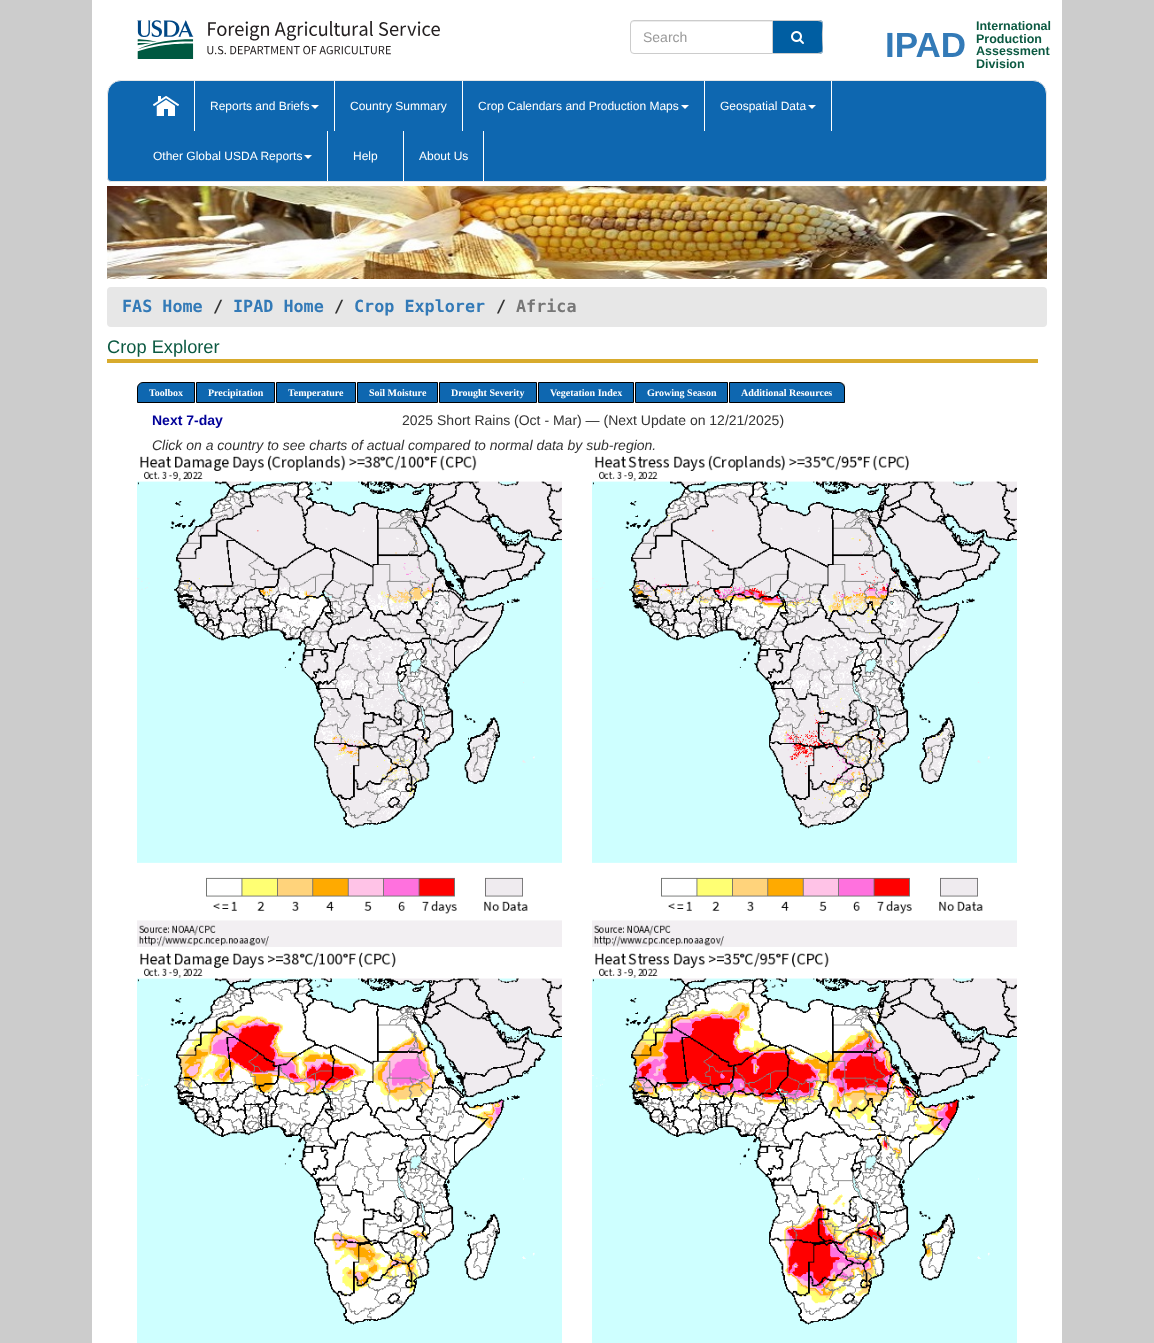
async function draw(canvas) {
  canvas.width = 1154
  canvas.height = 1343
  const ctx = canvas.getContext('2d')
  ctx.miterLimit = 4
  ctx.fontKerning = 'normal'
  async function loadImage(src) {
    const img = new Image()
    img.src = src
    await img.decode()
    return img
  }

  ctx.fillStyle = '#ccc'
  ctx.fillRect(0, 0, 1154, 1343)
  ctx.fillStyle = '#fff'
  ctx.fillRect(92, 0, 970, 1343)
  ctx.drawImage(await loadImage('image0.png'), 137, 20, 303, 39)
  ctx.fillStyle = '#ececec'
  ctx.beginPath()
  ctx.moveTo(634, 22)
  ctx.lineTo(772, 22)
  ctx.lineTo(772, 21)
  ctx.lineTo(634, 21)
  ctx.bezierCurveTo(632, 21, 631, 23, 631, 25)
  ctx.bezierCurveTo(631, 23, 632, 22, 634, 22)
  ctx.closePath()
  ctx.fill()
  ctx.beginPath()
  ctx.roundRect(630.5, 20.5, 142, 33, [3.5, 0, 0, 3.5])
  ctx.strokeStyle = '#ccc'
  ctx.stroke()
  ctx.font = '14px Liberation Sans'
  ctx.fillStyle = '#999'
  ctx.fillText('Search', 643, 42)
  ctx.fillStyle = '#005ea2'
  ctx.beginPath()
  ctx.roundRect(773, 20, 50, 34, [0, 4, 4, 0])
  ctx.fill()
  ctx.fillStyle = '#ccc'
  ctx.beginPath()
  ctx.moveTo(773, 20)
  ctx.lineTo(819, 20)
  ctx.bezierCurveTo(821, 20, 823, 22, 823, 24)
  ctx.lineTo(823, 50)
  ctx.bezierCurveTo(823, 52, 821, 54, 819, 54)
  ctx.lineTo(773, 54)
  ctx.closePath()
  ctx.moveTo(773, 21)
  ctx.lineTo(811, 21)
  ctx.bezierCurveTo(826, 21, 822, 21, 822, 37)
  ctx.bezierCurveTo(822, 53, 826, 53, 811, 53)
  ctx.lineTo(773, 53)
  ctx.closePath()
  ctx.fill('evenodd')
  ctx.drawImage(await loadImage('image1.png'), 791, 31, 13, 13)
  ctx.font = 'bold 35px Liberation Sans'
  ctx.fillStyle = '#337ab7'
  ctx.fillText('IPAD', 885, 57)
  ctx.font = 'bold 12.5px Liberation Sans'
  ctx.fillStyle = '#0b5941'
  ctx.fillText('International', 976, 30)
  ctx.fillText('Production', 976, 43)
  ctx.fillText('Assessment', 976, 55)
  ctx.fillText('Division', 976, 68)
  ctx.fillStyle = '#0e67b0'
  ctx.beginPath()
  ctx.roundRect(107.5, 80.5, 939, 101, [13.5, 13.5, 3.5, 3.5])
  ctx.fill()
  ctx.strokeStyle = '#e7e7e7'
  ctx.stroke()
  ctx.fillStyle = '#fff'
  ctx.fillRect(194, 81, 1, 50)
  ctx.drawImage(await loadImage('image2.png'), 153, 96, 26, 20)
  ctx.fillRect(334, 81, 1, 50)
  ctx.font = '12px Liberation Sans'
  ctx.fillText('Reports and Briefs', 210, 110)
  ctx.beginPath()
  ctx.moveTo(311, 105)
  ctx.lineTo(319, 105)
  ctx.lineTo(315, 109)
  ctx.closePath()
  ctx.fill()
  ctx.fillRect(462, 81, 1, 50)
  ctx.fillText('Country Summary', 350, 110)
  ctx.fillRect(704, 81, 1, 50)
  ctx.fillText('Crop Calendars and Production Maps', 478, 110)
  ctx.beginPath()
  ctx.moveTo(681, 105)
  ctx.lineTo(689, 105)
  ctx.lineTo(685, 109)
  ctx.closePath()
  ctx.fill()
  ctx.fillRect(831, 81, 1, 50)
  ctx.fillText('Geospatial Data', 720, 110)
  ctx.beginPath()
  ctx.moveTo(808, 105)
  ctx.lineTo(816, 105)
  ctx.lineTo(812, 109)
  ctx.closePath()
  ctx.fill()
  ctx.fillRect(327, 131, 1, 50)
  ctx.fillText('Other Global USDA Reports', 153, 160)
  ctx.beginPath()
  ctx.moveTo(304, 155)
  ctx.lineTo(312, 155)
  ctx.lineTo(308, 159)
  ctx.closePath()
  ctx.fill()
  ctx.fillRect(403, 131, 1, 50)
  ctx.fillText('Help', 353, 160)
  ctx.fillRect(483, 131, 1, 50)
  ctx.fillText('About Us', 419, 160)
  ctx.drawImage(await loadImage('image3.png'), 107, 186, 940, 93)
  ctx.fillStyle = '#e7e7e7'
  ctx.beginPath()
  ctx.roundRect(107, 287, 940, 40, 4)
  ctx.fill()
  ctx.font = 'bold 16.75px DejaVu Sans Mono'
  ctx.fillStyle = '#337ab7'
  ctx.fillText('FAS Home', 122, 312)
  ctx.fillStyle = '#333'
  ctx.fillText('/', 213, 312)
  ctx.fillStyle = '#337ab7'
  ctx.fillText('IPAD Home', 233, 312)
  ctx.fillStyle = '#333'
  ctx.fillText('/', 334, 312)
  ctx.fillStyle = '#337ab7'
  ctx.fillText('Crop Explorer', 354, 312)
  ctx.fillStyle = '#333'
  ctx.fillText('/', 496, 312)
  ctx.fillStyle = '#777'
  ctx.fillText('Africa', 516, 312)
  ctx.fillStyle = '#d8ab2d'
  ctx.fillRect(107, 359, 931, 4)
  ctx.font = '18.25px Liberation Sans'
  ctx.fillStyle = '#0b5941'
  ctx.fillText('Crop Explorer', 107, 353)
  ctx.fillStyle = '#0e67b0'
  ctx.beginPath()
  ctx.roundRect(137.5, 382.5, 57, 20, [5.5, 0, 0, 0])
  ctx.fill()
  ctx.strokeStyle = '#000'
  ctx.stroke()
  ctx.font = 'bold 10px Liberation Serif'
  ctx.fillStyle = '#fff'
  ctx.fillText('Toolbox', 149, 396)
  ctx.fillStyle = '#0e67b0'
  ctx.beginPath()
  ctx.rect(196.5, 382.5, 78, 20)
  ctx.fill()
  ctx.stroke()
  ctx.fillStyle = '#fff'
  ctx.fillText('Precipitation', 208, 396)
  ctx.fillStyle = '#0e67b0'
  ctx.beginPath()
  ctx.rect(276.5, 382.5, 79, 20)
  ctx.fill()
  ctx.stroke()
  ctx.fillStyle = '#fff'
  ctx.fillText('Temperature', 288, 396)
  ctx.fillStyle = '#0e67b0'
  ctx.beginPath()
  ctx.rect(357.5, 382.5, 80, 20)
  ctx.fill()
  ctx.stroke()
  ctx.fillStyle = '#fff'
  ctx.fillText('Soil Moisture', 369, 396)
  ctx.fillStyle = '#0e67b0'
  ctx.beginPath()
  ctx.rect(439.5, 382.5, 97, 20)
  ctx.fill()
  ctx.stroke()
  ctx.fillStyle = '#fff'
  ctx.fillText('Drought Severity', 451, 396)
  ctx.fillStyle = '#0e67b0'
  ctx.beginPath()
  ctx.rect(538.5, 382.5, 95, 20)
  ctx.fill()
  ctx.stroke()
  ctx.fillStyle = '#fff'
  ctx.fillText('Vegetation Index', 550, 396)
  ctx.fillStyle = '#0e67b0'
  ctx.beginPath()
  ctx.rect(635.5, 382.5, 92, 20)
  ctx.fill()
  ctx.stroke()
  ctx.fillStyle = '#fff'
  ctx.fillText('Growing Season', 647, 396)
  ctx.fillStyle = '#c8c8c8'
  ctx.beginPath()
  ctx.roundRect(729, 382, 117, 21, [0, 6, 0, 0])
  ctx.fill()
  ctx.fillStyle = '#fff'
  ctx.fillRect(845, 385, 1, 18)
  ctx.fillStyle = '#0e67b0'
  ctx.beginPath()
  ctx.roundRect(729.5, 382.5, 115, 20, [0, 5.5, 0, 0])
  ctx.fill()
  ctx.stroke()
  ctx.fillStyle = '#fff'
  ctx.fillText('Additional Resources', 741, 396)
  ctx.font = 'bold 14px Liberation Sans'
  ctx.fillStyle = '#009'
  ctx.fillText('Next 7-day', 152, 425)
  ctx.font = '14px Liberation Sans'
  ctx.fillStyle = '#333'
  ctx.fillText('2025 Short Rains (Oct - Mar) — (Next Update on 12/21/2025)', 402, 425)
  ctx.font = 'italic 14px Liberation Sans'
  ctx.fillText('Click on a country to see charts of actual compared to normal data by sub-region.', 152, 450)
  ctx.drawImage(await loadImage('image4.png'), 137, 455, 425, 492)
  ctx.drawImage(await loadImage('image5.png'), 592, 455, 425, 492)
  ctx.drawImage(await loadImage('image6.png'), 137, 952, 425, 391)
  ctx.drawImage(await loadImage('image7.png'), 592, 952, 425, 391)
}

draw(document.querySelector('canvas'))
